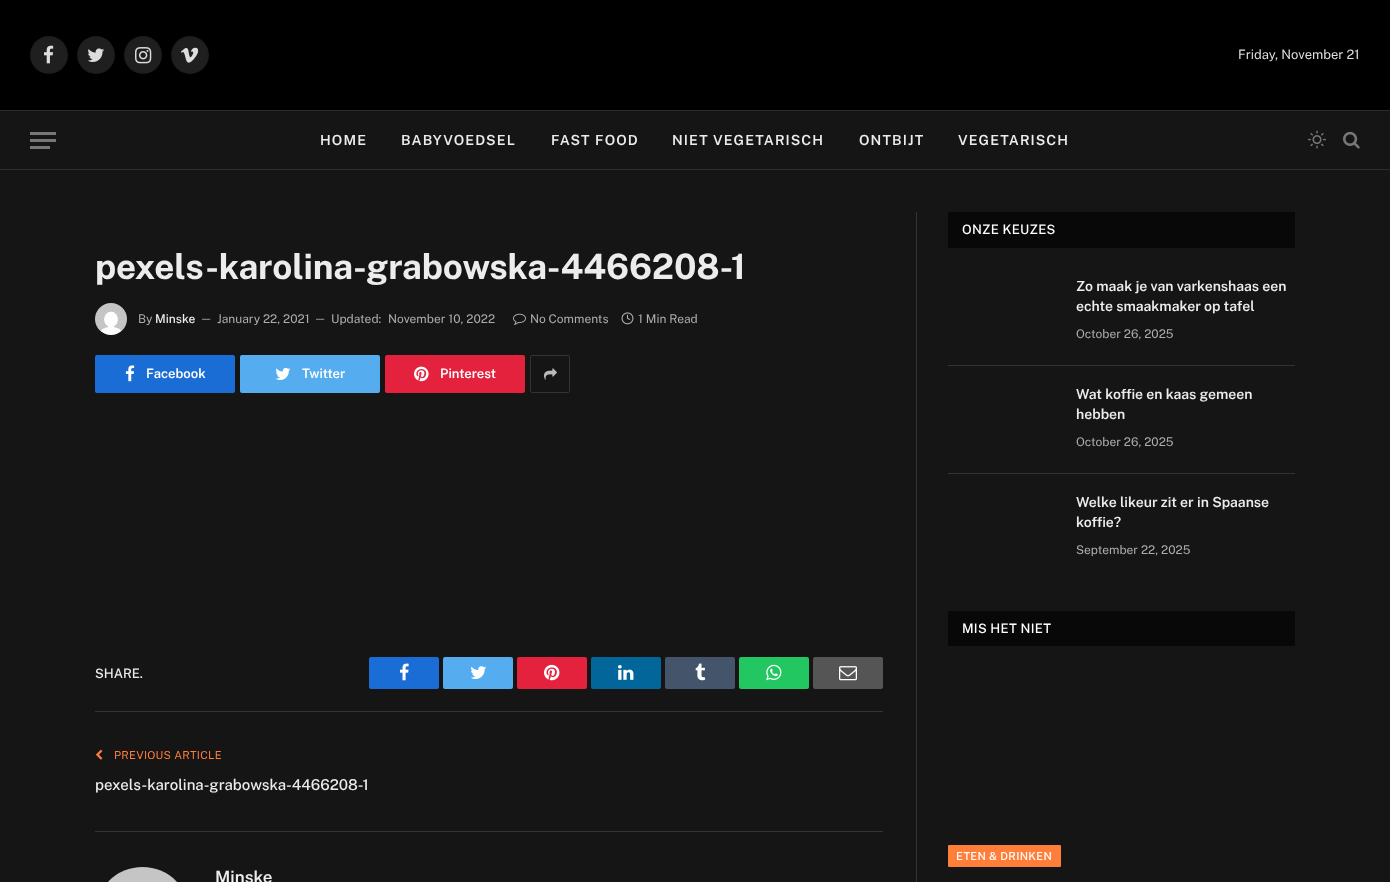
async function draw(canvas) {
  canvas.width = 1390
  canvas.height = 882
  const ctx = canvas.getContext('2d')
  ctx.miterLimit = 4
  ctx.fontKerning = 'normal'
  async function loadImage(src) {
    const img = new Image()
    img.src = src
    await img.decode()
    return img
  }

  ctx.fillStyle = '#151516'
  ctx.fillRect(0, 0, 1390, 882)
  ctx.fillStyle = '#000'
  ctx.fillRect(0, 0, 1390, 110)
  ctx.fillStyle = '#1f1f1f'
  ctx.beginPath()
  ctx.arc(49, 55, 19, 0, 2 * Math.PI)
  ctx.fill()
  ctx.beginPath()
  ctx.arc(49, 55, 18.5, 0, 2 * Math.PI)
  ctx.strokeStyle = '#00000017'
  ctx.stroke()
  ctx.drawImage(await loadImage('image0.png'), 44, 45, 10, 19)
  ctx.beginPath()
  ctx.arc(96, 55, 19, 0, 2 * Math.PI)
  ctx.fill()
  ctx.beginPath()
  ctx.arc(96, 55, 18.5, 0, 2 * Math.PI)
  ctx.stroke()
  ctx.drawImage(await loadImage('image1.png'), 87, 48, 17, 14)
  ctx.beginPath()
  ctx.arc(143, 55, 19, 0, 2 * Math.PI)
  ctx.fill()
  ctx.beginPath()
  ctx.arc(143, 55, 18.5, 0, 2 * Math.PI)
  ctx.stroke()
  ctx.drawImage(await loadImage('image2.png'), 135, 47, 17, 17)
  ctx.beginPath()
  ctx.arc(190, 55, 19, 0, 2 * Math.PI)
  ctx.fill()
  ctx.beginPath()
  ctx.arc(190, 55, 18.5, 0, 2 * Math.PI)
  ctx.stroke()
  ctx.drawImage(await loadImage('image3.png'), 181, 47, 18, 16)
  ctx.font = '13px Public Sans'
  ctx.fillStyle = '#ddd'
  ctx.fillText('Friday, November 21', 1238, 59)
  ctx.fillStyle = '#2c2c2d'
  ctx.fillRect(0, 110, 1390, 1)
  ctx.fillRect(0, 169, 1390, 1)
  ctx.fillStyle = '#777'
  ctx.fillRect(30, 146, 20, 3)
  ctx.fillRect(30, 132, 26, 3)
  ctx.fillRect(30, 139, 26, 3)
  ctx.letterSpacing = '1.1px'
  ctx.font = '600 14px Public Sans'
  ctx.fillStyle = '#ececec'
  ctx.fillText('HOME', 320, 145)
  ctx.fillText('BABYVOEDSEL', 401, 145)
  ctx.fillText('FAST FOOD', 551, 145)
  ctx.fillText('NIET VEGETARISCH', 672, 145)
  ctx.fillText('ONTBIJT', 859, 145)
  ctx.fillText('VEGETARISCH', 958, 145)
  ctx.drawImage(await loadImage('image4.png'), 1308, 130, 18, 19)
  ctx.drawImage(await loadImage('image5.png'), 1343, 131, 17, 18)
  ctx.letterSpacing = '-0.15px'
  ctx.font = 'bold 35px Public Sans'
  ctx.fillText('pexels-karolina-grabowska-4466208-1', 95, 279)
  ctx.drawImage(await loadImage('image6.png'), 95, 303, 32, 32)
  ctx.letterSpacing = '0px'
  ctx.font = '12px Public Sans'
  ctx.fillStyle = '#adadad'
  ctx.fillText('By', 138, 323)
  ctx.font = '500 12px Public Sans'
  ctx.fillStyle = '#ececec'
  ctx.fillText('Minske', 155, 323)
  ctx.font = '11px Public Sans'
  ctx.fillStyle = '#adadad'
  ctx.fillText('—', 200, 322)
  ctx.font = '12px Public Sans'
  ctx.fillText('January 22, 2021', 217, 323)
  ctx.font = '11px Public Sans'
  ctx.fillText('—', 314, 322)
  ctx.font = '12px Public Sans'
  ctx.fillText('Updated:', 331, 323)
  ctx.fillText('November 10, 2022', 388, 323)
  ctx.drawImage(await loadImage('image7.png'), 513, 313, 13, 12)
  ctx.fillText('No Comments', 530, 323)
  ctx.drawImage(await loadImage('image8.png'), 621, 312, 13, 13)
  ctx.fillText('1 Min Read', 638, 323)
  ctx.fillStyle = '#1a6dd4'
  ctx.beginPath()
  ctx.roundRect(95, 355, 140, 38, 2)
  ctx.fill()
  ctx.drawImage(await loadImage('image9.png'), 125, 365, 10, 17)
  ctx.font = '600 13px Public Sans'
  ctx.fillStyle = '#fff'
  ctx.fillText('Facebook', 146, 378)
  ctx.fillStyle = '#55acef'
  ctx.beginPath()
  ctx.roundRect(240, 355, 140, 38, 2)
  ctx.fill()
  ctx.drawImage(await loadImage('image10.png'), 275, 367, 16, 13)
  ctx.fillStyle = '#fff'
  ctx.fillText('Twitter', 302, 378)
  ctx.fillStyle = '#e4223e'
  ctx.beginPath()
  ctx.roundRect(385, 355, 140, 38, 2)
  ctx.fill()
  ctx.drawImage(await loadImage('image11.png'), 414, 366, 15, 16)
  ctx.fillStyle = '#fff'
  ctx.fillText('Pinterest', 440, 378)
  ctx.beginPath()
  ctx.roundRect(530.5, 355.5, 39, 37, 1.5)
  ctx.strokeStyle = '#333'
  ctx.stroke()
  ctx.drawImage(await loadImage('image12.png'), 544, 368, 13, 12)
  ctx.font = '500 13px Public Sans'
  ctx.fillStyle = '#ececec'
  ctx.fillText('SHARE.', 95, 678)
  ctx.fillStyle = '#1a6dd4'
  ctx.beginPath()
  ctx.roundRect(369, 657, 70, 32, 2)
  ctx.fill()
  ctx.drawImage(await loadImage('image13.png'), 399, 663, 10, 18)
  ctx.fillStyle = '#55acef'
  ctx.beginPath()
  ctx.roundRect(443, 657, 70, 32, 2)
  ctx.fill()
  ctx.drawImage(await loadImage('image14.png'), 470, 666, 17, 13)
  ctx.fillStyle = '#e4223e'
  ctx.beginPath()
  ctx.roundRect(517, 657, 70, 32, 2)
  ctx.fill()
  ctx.drawImage(await loadImage('image15.png'), 544, 664, 16, 17)
  ctx.fillStyle = '#02669a'
  ctx.beginPath()
  ctx.roundRect(591, 657, 70, 32, 2)
  ctx.fill()
  ctx.drawImage(await loadImage('image16.png'), 618, 665, 16, 15)
  ctx.fillStyle = '#44546b'
  ctx.beginPath()
  ctx.roundRect(665, 657, 70, 32, 2)
  ctx.fill()
  ctx.drawImage(await loadImage('image17.png'), 695, 663, 11, 18)
  ctx.fillStyle = '#23c761'
  ctx.beginPath()
  ctx.roundRect(739, 657, 70, 32, 2)
  ctx.fill()
  ctx.drawImage(await loadImage('image18.png'), 766, 664, 16, 17)
  ctx.fillStyle = '#555'
  ctx.beginPath()
  ctx.roundRect(813, 657, 70, 32, 2)
  ctx.fill()
  ctx.drawImage(await loadImage('image19.png'), 839, 666, 18, 15)
  ctx.fillStyle = '#333334'
  ctx.fillRect(95, 711, 788, 1)
  ctx.drawImage(await loadImage('image20.png'), 96, 749, 7, 11)
  ctx.letterSpacing = '0.3px'
  ctx.font = '11px Public Sans'
  ctx.fillStyle = '#ff7e3a'
  ctx.fillText('PREVIOUS ARTICLE', 114, 759)
  ctx.letterSpacing = '0px'
  ctx.font = '500 15px Public Sans'
  ctx.fillStyle = '#ececec'
  ctx.fillText('pexels-karolina-grabowska-4466208-1', 95, 790)
  ctx.fillStyle = '#333334'
  ctx.fillRect(95, 831, 788, 1)
  ctx.drawImage(await loadImage('image21.png'), 108, 867, 69, 15)
  ctx.font = '600 17px Public Sans'
  ctx.fillStyle = '#ececec'
  ctx.fillText('Minske', 215, 883)
  ctx.fillStyle = '#333334'
  ctx.fillRect(916, 212, 1, 670)
  ctx.fillStyle = '#080808'
  ctx.fillRect(948, 212, 347, 36)
  ctx.letterSpacing = '0.25px'
  ctx.font = '500 13px Public Sans'
  ctx.fillStyle = '#fff'
  ctx.fillText('ONZE KEUZES', 962, 234)
  ctx.letterSpacing = '0px'
  ctx.font = '600 14px Public Sans'
  ctx.fillStyle = '#ececec'
  ctx.fillText('Zo maak je van varkenshaas een', 1076, 291)
  ctx.fillText('echte smaakmaker op tafel', 1076, 311)
  ctx.font = '12px Public Sans'
  ctx.fillStyle = '#adadad'
  ctx.fillText('October 26, 2025', 1076, 338)
  ctx.fillStyle = '#333334'
  ctx.fillRect(948, 365, 347, 1)
  ctx.font = '600 14px Public Sans'
  ctx.fillStyle = '#ececec'
  ctx.fillText('Wat koffie en kaas gemeen', 1076, 399)
  ctx.fillText('hebben', 1076, 419)
  ctx.font = '12px Public Sans'
  ctx.fillStyle = '#adadad'
  ctx.fillText('October 26, 2025', 1076, 446)
  ctx.fillStyle = '#333334'
  ctx.fillRect(948, 473, 347, 1)
  ctx.font = '600 14px Public Sans'
  ctx.fillStyle = '#ececec'
  ctx.fillText('Welke likeur zit er in Spaanse', 1076, 507)
  ctx.fillText('koffie?', 1076, 527)
  ctx.font = '12px Public Sans'
  ctx.fillStyle = '#adadad'
  ctx.fillText('September 22, 2025', 1076, 554)
  ctx.fillStyle = '#080808'
  ctx.fillRect(948, 611, 347, 35)
  ctx.letterSpacing = '0.25px'
  ctx.font = '500 13px Public Sans'
  ctx.fillStyle = '#fff'
  ctx.fillText('MIS HET NIET', 962, 633)
  ctx.fillStyle = '#ff7e3a'
  ctx.beginPath()
  ctx.roundRect(948, 845, 113, 22, 1)
  ctx.fill()
  ctx.letterSpacing = '0.3px'
  ctx.font = '500 11px Public Sans'
  ctx.fillStyle = '#fff'
  ctx.fillText('ETEN & DRINKEN', 956, 860)
}

draw(document.querySelector('canvas'))
